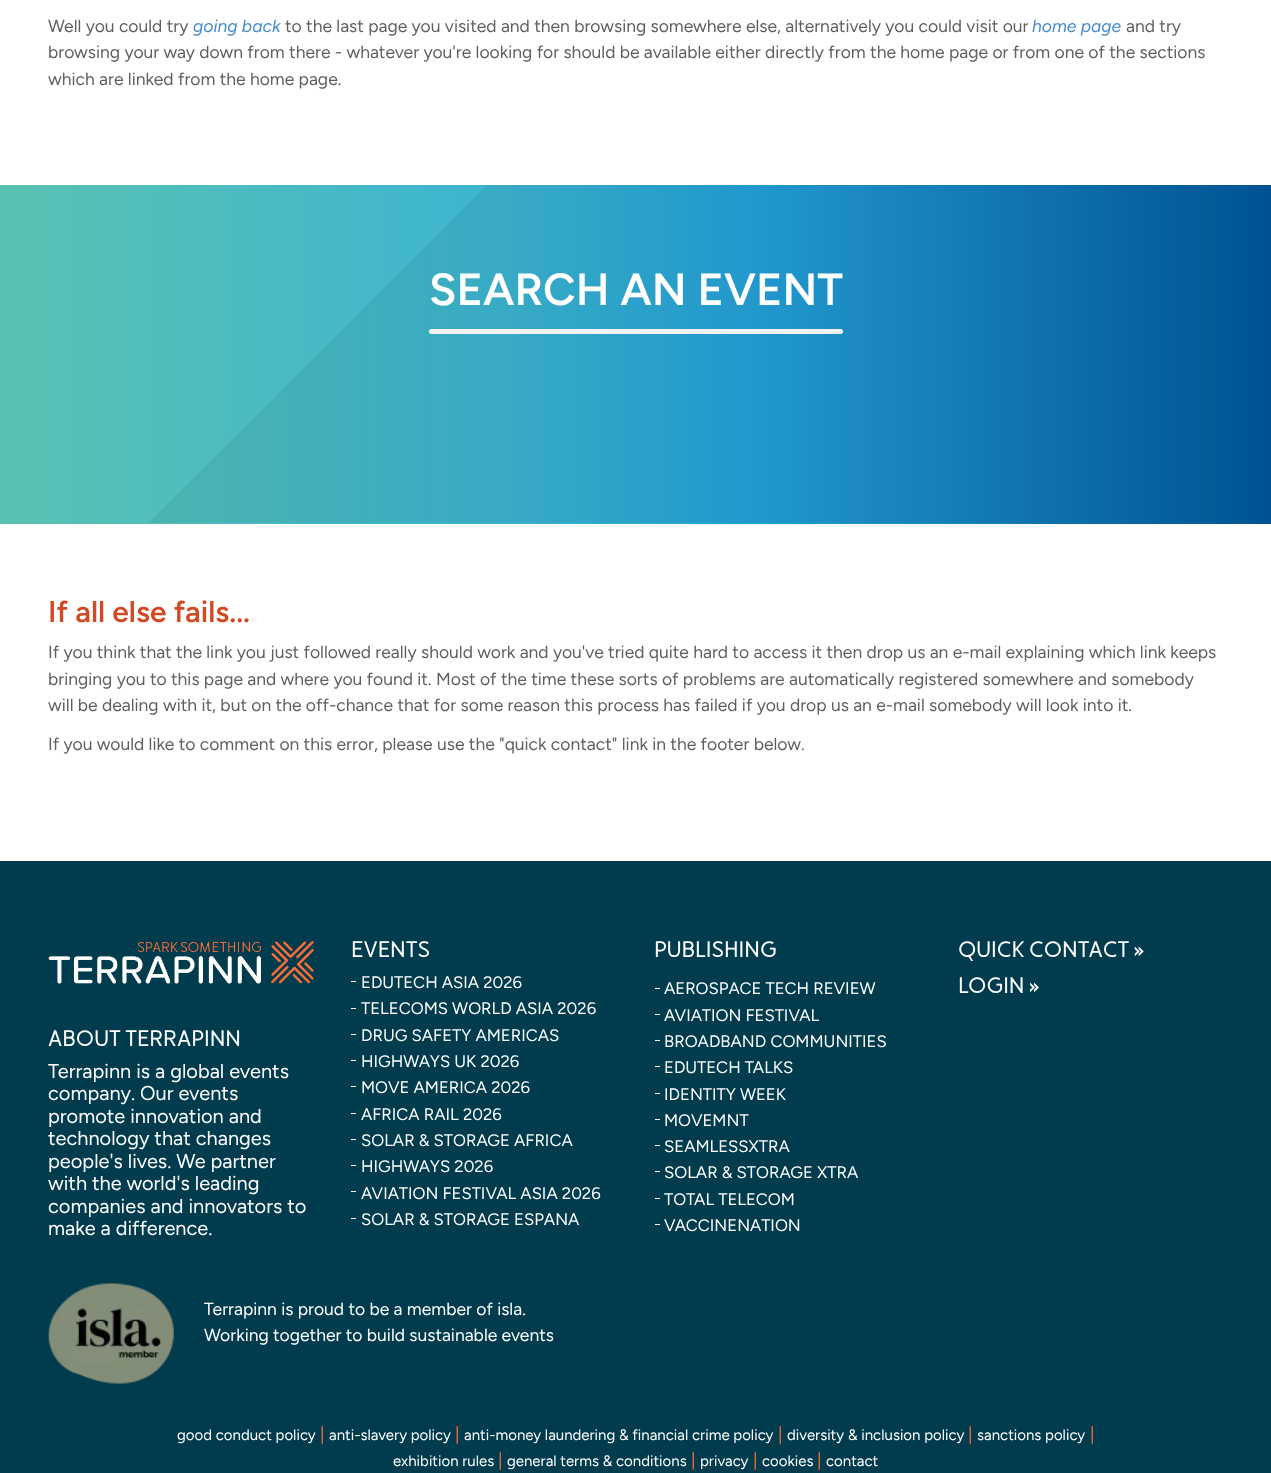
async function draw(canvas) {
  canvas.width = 1271
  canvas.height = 1473
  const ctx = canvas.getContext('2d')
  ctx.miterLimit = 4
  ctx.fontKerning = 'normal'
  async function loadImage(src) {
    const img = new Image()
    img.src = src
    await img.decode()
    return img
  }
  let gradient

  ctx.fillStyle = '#fff'
  ctx.fillRect(0, 0, 1271, 1473)
  ctx.font = '17.5px Figtree'
  ctx.fillStyle = '#606060'
  ctx.fillText('Well you could try', 48, 32)
  ctx.font = 'italic 17.5px Figtree'
  ctx.fillStyle = '#428bca'
  ctx.fillText('going back', 193, 32)
  ctx.font = '17.5px Figtree'
  ctx.fillStyle = '#606060'
  ctx.fillText('to the last page you visited and then browsing somewhere else, alternatively you could visit our', 285, 32)
  ctx.font = 'italic 17.5px Figtree'
  ctx.fillStyle = '#428bca'
  ctx.fillText('home page', 1032, 32)
  ctx.font = '17.5px Figtree'
  ctx.fillStyle = '#606060'
  ctx.fillText('and try', 1126, 32)
  ctx.fillText('browsing your way down from there - whatever you\'re looking for should be available either directly from the home page or from one of the sections', 48, 58)
  ctx.fillText('which are linked from the home page.', 48, 85)
  gradient = ctx.createLinearGradient(0, 354, 1271, 354)
  gradient.addColorStop(0, '#59c2b1')
  gradient.addColorStop(0.39, '#3cb5d0')
  gradient.addColorStop(0.6, '#23a0d8')
  gradient.addColorStop(1, '#00579a')
  ctx.fillStyle = gradient
  ctx.fillRect(0, 185, 1271, 339)
  ctx.fillStyle = '#fff'
  ctx.beginPath()
  ctx.roundRect(429, 329, 414, 5, 2.5)
  ctx.fill()
  ctx.fillStyle = '#0000000d'
  ctx.beginPath()
  ctx.moveTo(487, 185)
  ctx.lineTo(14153, 185)
  ctx.lineTo(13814, 523)
  ctx.lineTo(148, 523)
  ctx.closePath()
  ctx.fill()
  ctx.font = '600 45px Figtree'
  ctx.fillStyle = '#fff'
  ctx.fillText('SEARCH AN EVENT', 429, 305)
  ctx.font = '600 30px Figtree'
  ctx.fillStyle = '#d04b24'
  ctx.fillText('If all else fails...', 48, 622)
  ctx.font = '17.5px Figtree'
  ctx.fillStyle = '#606060'
  ctx.fillText('If you think that the link you just followed really should work and you\'ve tried quite hard to access it then drop us an e-mail explaining which link keeps', 48, 658)
  ctx.fillText('bringing you to this page and where you found it. Most of the time these sorts of problems are automatically registered somewhere and somebody', 48, 685)
  ctx.fillText('will be dealing with it, but on the off-chance that for some reason this process has failed if you drop us an e-mail somebody will look into it.', 48, 711)
  ctx.fillText('If you would like to comment on this error, please use the "quick contact" link in the footer below.', 48, 750)
  ctx.fillStyle = '#003c4d'
  ctx.fillRect(0, 861, 1271, 612)
  ctx.font = 'bold 22.5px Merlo'
  ctx.fillStyle = '#fff'
  ctx.fillText('EVENTS', 351, 957)
  ctx.fillRect(351, 981, 5, 1)
  ctx.font = '16.7px Figtree'
  ctx.fillText('EDUTECH ASIA 2026', 361, 988)
  ctx.fillRect(351, 1008, 5, 1)
  ctx.fillText('TELECOMS WORLD ASIA 2026', 361, 1014)
  ctx.fillRect(351, 1034, 5, 1)
  ctx.fillText('DRUG SAFETY AMERICAS', 361, 1041)
  ctx.fillRect(351, 1060, 5, 1)
  ctx.fillText('HIGHWAYS UK 2026', 361, 1067)
  ctx.fillRect(351, 1086, 5, 1)
  ctx.fillText('MOVE AMERICA 2026', 361, 1093)
  ctx.fillRect(351, 1113, 5, 1)
  ctx.fillText('AFRICA RAIL 2026', 361, 1120)
  ctx.fillRect(351, 1139, 5, 1)
  ctx.fillText('SOLAR & STORAGE AFRICA', 361, 1146)
  ctx.fillRect(351, 1165, 5, 1)
  ctx.fillText('HIGHWAYS 2026', 361, 1172)
  ctx.fillRect(351, 1191, 5, 1)
  ctx.fillText('AVIATION FESTIVAL ASIA 2026', 361, 1199)
  ctx.fillRect(351, 1218, 5, 1)
  ctx.fillText('SOLAR & STORAGE ESPANA', 361, 1225)
  ctx.font = 'bold 22.5px Merlo'
  ctx.fillText('PUBLISHING', 654, 957)
  ctx.fillRect(655, 988, 5, 1)
  ctx.font = '16.7px Figtree'
  ctx.fillText('AEROSPACE TECH REVIEW', 664, 994)
  ctx.fillRect(655, 1014, 5, 1)
  ctx.fillText('AVIATION FESTIVAL', 664, 1021)
  ctx.fillRect(655, 1040, 5, 1)
  ctx.fillText('BROADBAND COMMUNITIES', 664, 1047)
  ctx.fillRect(655, 1066, 5, 1)
  ctx.fillText('EDUTECH TALKS', 664, 1073)
  ctx.fillRect(655, 1093, 5, 1)
  ctx.fillText('IDENTITY WEEK', 664, 1100)
  ctx.fillRect(655, 1119, 5, 1)
  ctx.fillText('MOVEMNT', 664, 1126)
  ctx.fillRect(655, 1145, 5, 1)
  ctx.fillText('SEAMLESSXTRA', 664, 1152)
  ctx.fillRect(655, 1171, 5, 1)
  ctx.fillText('SOLAR & STORAGE XTRA', 664, 1178)
  ctx.fillRect(655, 1198, 5, 1)
  ctx.fillText('TOTAL TELECOM', 664, 1205)
  ctx.fillRect(655, 1224, 5, 1)
  ctx.fillText('VACCINENATION', 664, 1231)
  ctx.font = 'bold 22.5px Merlo'
  ctx.fillText('QUICK CONTACT »', 958, 957)
  ctx.fillText('LOGIN »', 958, 993)
  ctx.drawImage(await loadImage('image0.png'), 48, 941, 266, 43)
  ctx.fillText('ABOUT TERRAPINN', 48, 1046)
  ctx.font = '20px Figtree'
  ctx.fillText('Terrapinn is a global events', 48, 1078)
  ctx.fillText('company. Our events', 48, 1100)
  ctx.fillText('promote innovation and', 48, 1123)
  ctx.fillText('technology that changes', 48, 1145)
  ctx.fillText('people\'s lives. We partner', 48, 1168)
  ctx.fillText('with the world\'s leading', 48, 1190)
  ctx.fillText('companies and innovators to', 48, 1213)
  ctx.fillText('make a difference.', 48, 1235)
  ctx.drawImage(await loadImage('image1.png'), 48, 1283, 126, 101)
  ctx.font = '17.5px Figtree'
  ctx.fillText('Terrapinn is proud to be a member of isla.', 204, 1315)
  ctx.fillText('Working together to build sustainable events', 204, 1341)
  ctx.font = '15px Figtree'
  ctx.fillText('good conduct policy', 177, 1440)
  ctx.font = '17.5px Figtree'
  ctx.fillStyle = '#ff6c37'
  ctx.fillText('|', 320, 1440)
  ctx.font = '15px Figtree'
  ctx.fillStyle = '#fff'
  ctx.fillText('anti-slavery policy', 329, 1440)
  ctx.font = '17.5px Figtree'
  ctx.fillStyle = '#ff6c37'
  ctx.fillText('|', 455, 1440)
  ctx.font = '15px Figtree'
  ctx.fillStyle = '#fff'
  ctx.fillText('anti-money laundering & financial crime policy', 464, 1440)
  ctx.font = '17.5px Figtree'
  ctx.fillStyle = '#ff6c37'
  ctx.fillText('|', 778, 1440)
  ctx.font = '15px Figtree'
  ctx.fillStyle = '#fff'
  ctx.fillText('diversity & inclusion policy', 787, 1440)
  ctx.font = '17.5px Figtree'
  ctx.fillStyle = '#ff6c37'
  ctx.fillText('|', 968, 1440)
  ctx.font = '15px Figtree'
  ctx.fillStyle = '#fff'
  ctx.fillText('sanctions policy', 977, 1440)
  ctx.font = '17.5px Figtree'
  ctx.fillStyle = '#ff6c37'
  ctx.fillText('|', 1090, 1440)
  ctx.font = '15px Figtree'
  ctx.fillStyle = '#fff'
  ctx.fillText('exhibition rules', 393, 1466)
  ctx.font = '17.5px Figtree'
  ctx.fillStyle = '#ff6c37'
  ctx.fillText('|', 498, 1466)
  ctx.font = '15px Figtree'
  ctx.fillStyle = '#fff'
  ctx.fillText('general terms & conditions', 507, 1466)
  ctx.font = '17.5px Figtree'
  ctx.fillStyle = '#ff6c37'
  ctx.fillText('|', 691, 1466)
  ctx.font = '15px Figtree'
  ctx.fillStyle = '#fff'
  ctx.fillText('privacy', 700, 1466)
  ctx.font = '17.5px Figtree'
  ctx.fillStyle = '#ff6c37'
  ctx.fillText('|', 753, 1466)
  ctx.font = '15px Figtree'
  ctx.fillStyle = '#fff'
  ctx.fillText('cookies', 762, 1466)
  ctx.font = '17.5px Figtree'
  ctx.fillStyle = '#ff6c37'
  ctx.fillText('|', 817, 1466)
  ctx.font = '15px Figtree'
  ctx.fillStyle = '#fff'
  ctx.fillText('contact', 826, 1466)
}

draw(document.querySelector('canvas'))
